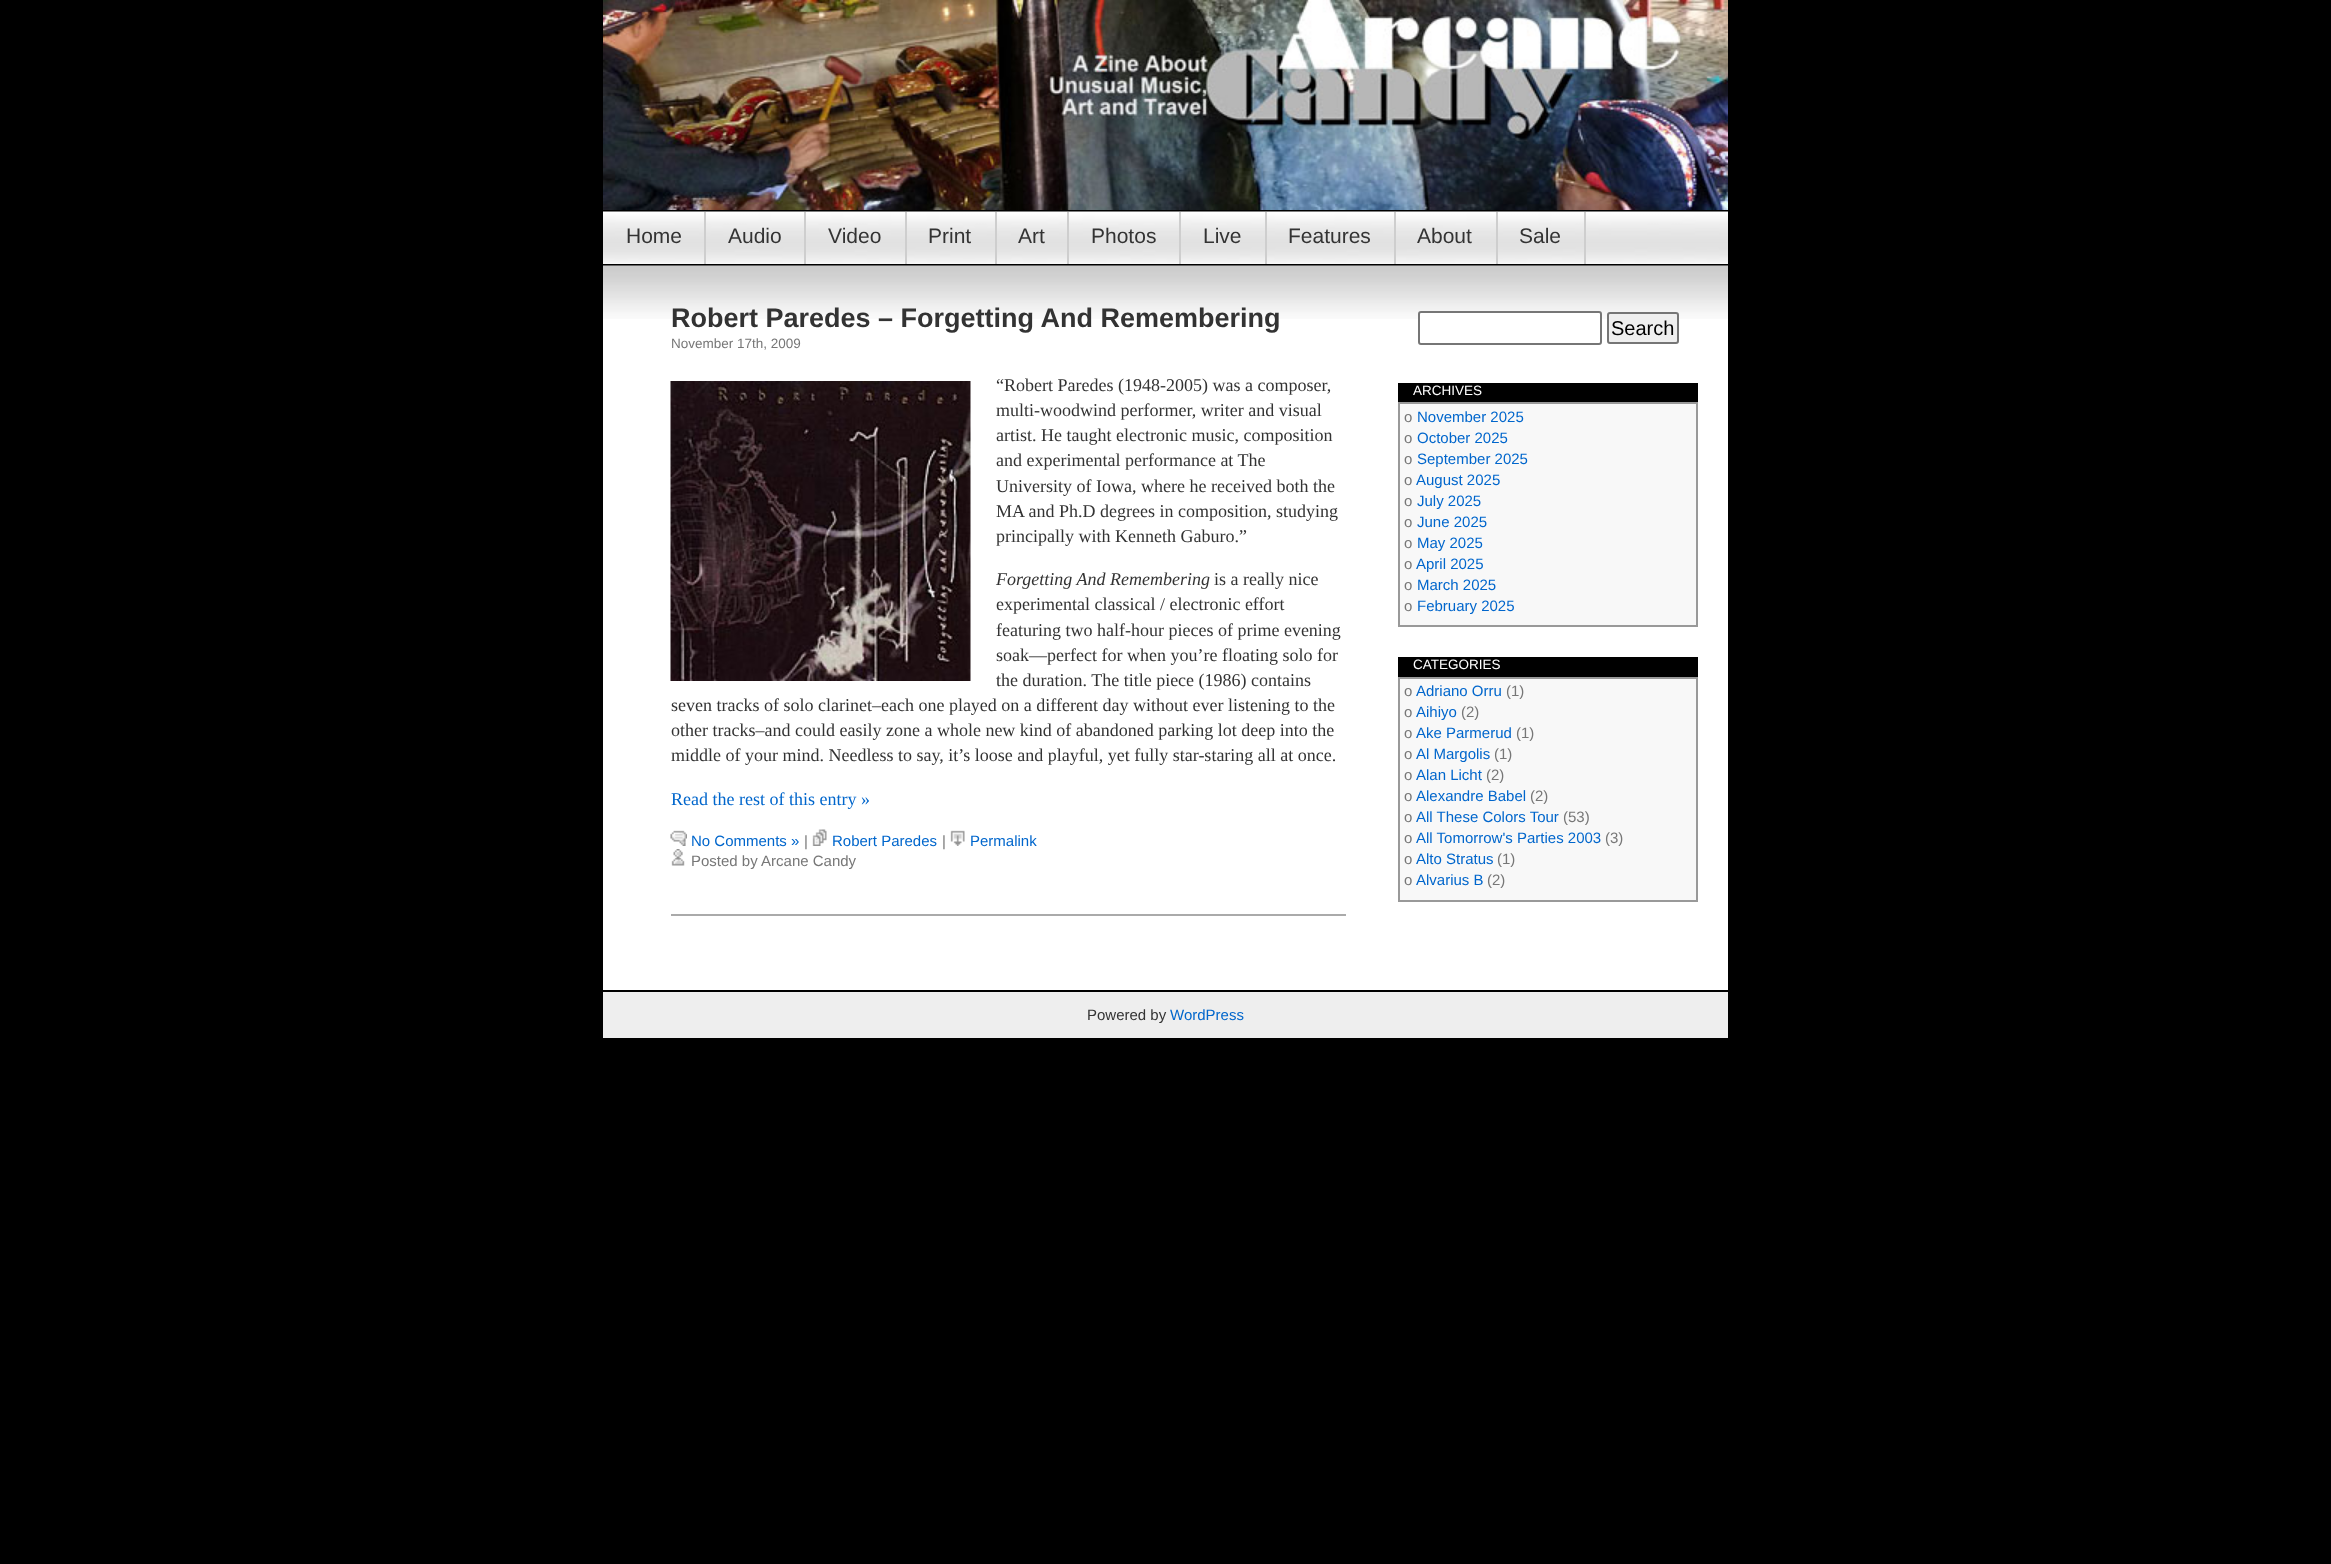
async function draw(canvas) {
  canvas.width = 2331
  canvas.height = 1564
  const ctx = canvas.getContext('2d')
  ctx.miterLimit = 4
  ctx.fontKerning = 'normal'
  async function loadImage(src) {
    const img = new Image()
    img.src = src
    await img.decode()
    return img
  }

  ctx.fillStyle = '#000'
  ctx.fillRect(0, 0, 2331, 1564)
  ctx.fillStyle = '#fff'
  ctx.fillRect(603, 319, 1125, 671)
  ctx.drawImage(await loadImage('image0.png'), 603, 0, 1125, 210)
  ctx.drawImage(await loadImage('image1.png'), 603, 211, 1125, 53)
  ctx.fillStyle = '#cecece'
  ctx.fillRect(704, 212, 2, 52)
  ctx.font = '21px Liberation Sans'
  ctx.fillStyle = '#333'
  ctx.fillText('Home', 626, 243)
  ctx.fillStyle = '#cecece'
  ctx.fillRect(804, 212, 2, 52)
  ctx.fillStyle = '#333'
  ctx.fillText('Audio', 728, 243)
  ctx.fillStyle = '#cecece'
  ctx.fillRect(905, 212, 2, 52)
  ctx.fillStyle = '#333'
  ctx.fillText('Video', 828, 243)
  ctx.fillStyle = '#cecece'
  ctx.fillRect(995, 212, 2, 52)
  ctx.fillStyle = '#333'
  ctx.fillText('Print', 928, 243)
  ctx.fillStyle = '#cecece'
  ctx.fillRect(1067, 212, 2, 52)
  ctx.fillStyle = '#333'
  ctx.fillText('Art', 1018, 243)
  ctx.fillStyle = '#cecece'
  ctx.fillRect(1179, 212, 2, 52)
  ctx.fillStyle = '#333'
  ctx.fillText('Photos', 1091, 243)
  ctx.fillStyle = '#cecece'
  ctx.fillRect(1265, 212, 2, 52)
  ctx.fillStyle = '#333'
  ctx.fillText('Live', 1203, 243)
  ctx.fillStyle = '#cecece'
  ctx.fillRect(1394, 212, 2, 52)
  ctx.fillStyle = '#333'
  ctx.fillText('Features', 1288, 243)
  ctx.fillStyle = '#cecece'
  ctx.fillRect(1496, 212, 2, 52)
  ctx.fillStyle = '#333'
  ctx.fillText('About', 1417, 243)
  ctx.fillStyle = '#cecece'
  ctx.fillRect(1584, 212, 2, 52)
  ctx.fillStyle = '#333'
  ctx.fillText('Sale', 1519, 243)
  ctx.drawImage(await loadImage('image2.png'), 603, 265, 1125, 54)
  ctx.font = 'bold 27px Liberation Sans'
  ctx.fillText('Robert Paredes – Forgetting And Remembering', 671, 327)
  ctx.font = '13.5px Liberation Sans'
  ctx.fillStyle = '#777'
  ctx.fillText('November 17th, 2009', 671, 348)
  ctx.drawImage(await loadImage('image3.png'), 670, 381, 301, 300)
  ctx.font = '18px Liberation Serif'
  ctx.fillStyle = '#333'
  ctx.fillText('“Robert Paredes (1948-2005) was a composer,', 996, 391)
  ctx.fillText('multi-woodwind performer, writer and visual', 996, 416)
  ctx.fillText('artist. He taught electronic music, composition', 996, 441)
  ctx.fillText('and experimental performance at The', 996, 466)
  ctx.fillText('University of Iowa, where he received both the', 996, 492)
  ctx.fillText('MA and Ph.D degrees in composition, studying', 996, 517)
  ctx.fillText('principally with Kenneth Gaburo.”', 996, 542)
  ctx.font = 'italic 18px Liberation Serif'
  ctx.fillText('Forgetting And Remembering', 996, 585)
  ctx.font = '18px Liberation Serif'
  ctx.fillText('is a really nice', 1214, 585)
  ctx.fillText('experimental classical / electronic effort', 996, 610)
  ctx.fillText('featuring two half-hour pieces of prime evening', 996, 636)
  ctx.fillText('soak—perfect for when you’re floating solo for', 996, 661)
  ctx.fillText('the duration. The title piece (1986) contains', 996, 686)
  ctx.fillText('seven tracks of solo clarinet–each one played on a different day without ever listening to the', 671, 711)
  ctx.fillText('other tracks–and could easily zone a whole new kind of abandoned parking lot deep into the', 671, 736)
  ctx.fillText('middle of your mind. Needless to say, it’s loose and playful, yet fully star-staring all at once.', 671, 761)
  ctx.fillStyle = '#06c'
  ctx.fillText('Read the rest of this entry »', 671, 805)
  ctx.drawImage(await loadImage('image4.png'), 670, 830, 17, 16)
  ctx.font = '15px Liberation Sans'
  ctx.fillText('No Comments »', 691, 846)
  ctx.fillStyle = '#777'
  ctx.fillText('|', 804, 846)
  ctx.drawImage(await loadImage('image5.png'), 812, 829, 15, 17)
  ctx.fillStyle = '#06c'
  ctx.fillText('Robert Paredes', 832, 846)
  ctx.fillStyle = '#777'
  ctx.fillText('|', 942, 846)
  ctx.drawImage(await loadImage('image6.png'), 950, 830, 15, 16)
  ctx.fillStyle = '#06c'
  ctx.fillText('Permalink', 970, 846)
  ctx.drawImage(await loadImage('image7.png'), 671, 849, 14, 17)
  ctx.fillStyle = '#777'
  ctx.fillText('Posted by Arcane Candy', 691, 866)
  ctx.fillStyle = '#aaa'
  ctx.fillRect(671, 914, 675, 2)
  ctx.fillStyle = '#fff'
  ctx.beginPath()
  ctx.roundRect(1419, 312, 182, 32, 2)
  ctx.fill()
  ctx.strokeStyle = '#767676'
  ctx.lineWidth = 2
  ctx.stroke()
  ctx.fillStyle = '#efefef'
  ctx.beginPath()
  ctx.roundRect(1608, 313, 70, 30, 2)
  ctx.fill()
  ctx.stroke()
  ctx.font = '20px Liberation Sans'
  ctx.fillStyle = '#000'
  ctx.fillText('Search', 1611, 335)
  ctx.fillRect(1398, 383, 300, 19)
  ctx.font = '13.5px Liberation Sans'
  ctx.fillStyle = '#fff'
  ctx.fillText('ARCHIVES', 1413, 395)
  ctx.fillStyle = '#f8f8f8'
  ctx.beginPath()
  ctx.rect(1399, 403, 298, 223)
  ctx.fill()
  ctx.strokeStyle = '#999'
  ctx.stroke()
  ctx.font = '15px Liberation Sans'
  ctx.fillStyle = '#777'
  ctx.fillText('o', 1404, 422)
  ctx.fillStyle = '#06c'
  ctx.fillText('November 2025', 1417, 422)
  ctx.fillStyle = '#777'
  ctx.fillText('o', 1404, 443)
  ctx.fillStyle = '#06c'
  ctx.fillText('October 2025', 1417, 443)
  ctx.fillStyle = '#777'
  ctx.fillText('o', 1404, 464)
  ctx.fillStyle = '#06c'
  ctx.fillText('September 2025', 1417, 464)
  ctx.fillStyle = '#777'
  ctx.fillText('o', 1404, 485)
  ctx.fillStyle = '#06c'
  ctx.fillText('August 2025', 1416, 485)
  ctx.fillStyle = '#777'
  ctx.fillText('o', 1404, 506)
  ctx.fillStyle = '#06c'
  ctx.fillText('July 2025', 1417, 506)
  ctx.fillStyle = '#777'
  ctx.fillText('o', 1404, 527)
  ctx.fillStyle = '#06c'
  ctx.fillText('June 2025', 1417, 527)
  ctx.fillStyle = '#777'
  ctx.fillText('o', 1404, 548)
  ctx.fillStyle = '#06c'
  ctx.fillText('May 2025', 1417, 548)
  ctx.fillStyle = '#777'
  ctx.fillText('o', 1404, 569)
  ctx.fillStyle = '#06c'
  ctx.fillText('April 2025', 1416, 569)
  ctx.fillStyle = '#777'
  ctx.fillText('o', 1404, 590)
  ctx.fillStyle = '#06c'
  ctx.fillText('March 2025', 1417, 590)
  ctx.fillStyle = '#777'
  ctx.fillText('o', 1404, 611)
  ctx.fillStyle = '#06c'
  ctx.fillText('February 2025', 1417, 611)
  ctx.fillStyle = '#000'
  ctx.fillRect(1398, 657, 300, 20)
  ctx.font = '13.5px Liberation Sans'
  ctx.fillStyle = '#fff'
  ctx.fillText('CATEGORIES', 1413, 669)
  ctx.fillStyle = '#f8f8f8'
  ctx.beginPath()
  ctx.rect(1399, 678, 298, 223)
  ctx.fill()
  ctx.stroke()
  ctx.font = '15px Liberation Sans'
  ctx.fillStyle = '#777'
  ctx.fillText('o', 1404, 696)
  ctx.fillStyle = '#06c'
  ctx.fillText('Adriano Orru', 1416, 696)
  ctx.fillStyle = '#777'
  ctx.fillText('(1)', 1506, 696)
  ctx.fillText('o', 1404, 717)
  ctx.fillStyle = '#06c'
  ctx.fillText('Aihiyo', 1416, 717)
  ctx.fillStyle = '#777'
  ctx.fillText('(2)', 1461, 717)
  ctx.fillText('o', 1404, 738)
  ctx.fillStyle = '#06c'
  ctx.fillText('Ake Parmerud', 1416, 738)
  ctx.fillStyle = '#777'
  ctx.fillText('(1)', 1516, 738)
  ctx.fillText('o', 1404, 759)
  ctx.fillStyle = '#06c'
  ctx.fillText('Al Margolis', 1416, 759)
  ctx.fillStyle = '#777'
  ctx.fillText('(1)', 1494, 759)
  ctx.fillText('o', 1404, 780)
  ctx.fillStyle = '#06c'
  ctx.fillText('Alan Licht', 1416, 780)
  ctx.fillStyle = '#777'
  ctx.fillText('(2)', 1486, 780)
  ctx.fillText('o', 1404, 801)
  ctx.fillStyle = '#06c'
  ctx.fillText('Alexandre Babel', 1416, 801)
  ctx.fillStyle = '#777'
  ctx.fillText('(2)', 1530, 801)
  ctx.fillText('o', 1404, 822)
  ctx.fillStyle = '#06c'
  ctx.fillText('All These Colors Tour', 1416, 822)
  ctx.fillStyle = '#777'
  ctx.fillText('(53)', 1563, 822)
  ctx.fillText('o', 1404, 843)
  ctx.fillStyle = '#06c'
  ctx.fillText('All Tomorrow\'s Parties 2003', 1416, 843)
  ctx.fillStyle = '#777'
  ctx.fillText('(3)', 1605, 843)
  ctx.fillText('o', 1404, 864)
  ctx.fillStyle = '#06c'
  ctx.fillText('Alto Stratus', 1416, 864)
  ctx.fillStyle = '#777'
  ctx.fillText('(1)', 1497, 864)
  ctx.fillText('o', 1404, 885)
  ctx.fillStyle = '#06c'
  ctx.fillText('Alvarius B', 1416, 885)
  ctx.fillStyle = '#777'
  ctx.fillText('(2)', 1487, 885)
  ctx.fillStyle = '#eee'
  ctx.fillRect(603, 992, 1125, 46)
  ctx.fillStyle = '#333'
  ctx.fillText('Powered by', 1087, 1020)
  ctx.fillStyle = '#06c'
  ctx.fillText('WordPress', 1170, 1020)
}

draw(document.querySelector('canvas'))
